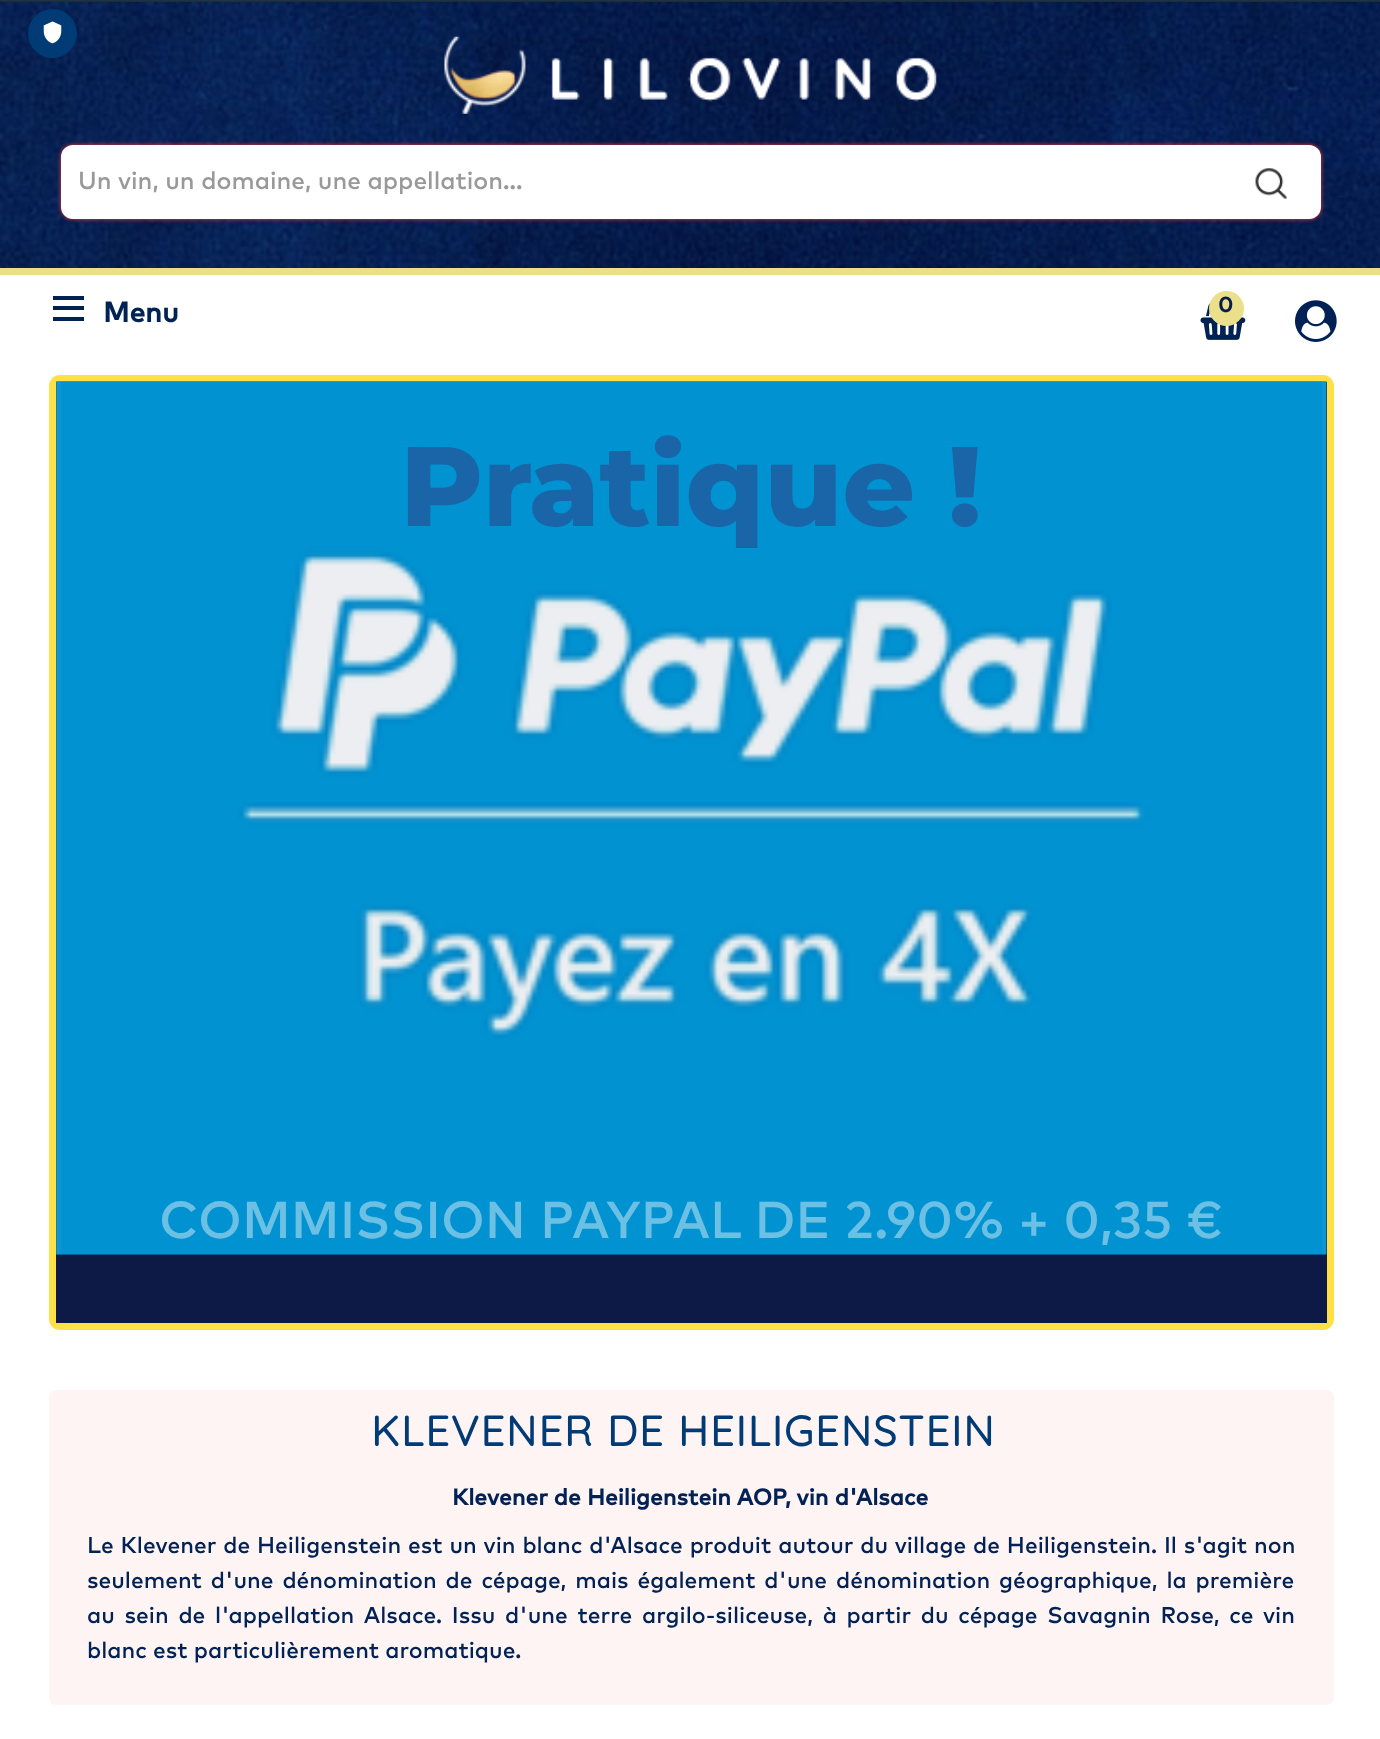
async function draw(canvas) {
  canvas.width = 1380
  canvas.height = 1739
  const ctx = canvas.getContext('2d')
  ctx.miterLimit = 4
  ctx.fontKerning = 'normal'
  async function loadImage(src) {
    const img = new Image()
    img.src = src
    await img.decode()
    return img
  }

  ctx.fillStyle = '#fff'
  ctx.fillRect(0, 0, 1380, 1739)
  ctx.fillStyle = '#1f323e'
  ctx.fillRect(0, 0, 1380, 2)
  ctx.drawImage(await loadImage('image1.png'), 0, 1, 1380, 267)
  ctx.fillStyle = '#003b75'
  ctx.beginPath()
  ctx.arc(52.5, 33.5, 24.5, 0, 2 * Math.PI)
  ctx.fill()
  ctx.drawImage(await loadImage('image0.png'), 43, 21, 19, 23)
  ctx.fillStyle = '#ebdf89'
  ctx.fillRect(0, 268, 1380, 7)
  ctx.drawImage(await loadImage('image2.png'), 444, 36, 493, 78)
  ctx.fillStyle = '#ff3737'
  ctx.filter = 'blur(2px)'
  ctx.beginPath()
  ctx.roundRect(61, 145, 1260, 74, 12)
  ctx.fill()
  ctx.filter = 'none'
  ctx.fillStyle = '#fff'
  ctx.beginPath()
  ctx.roundRect(61, 145, 1260, 74, 12)
  ctx.fill()
  ctx.font = '500 24.5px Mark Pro'
  ctx.fillStyle = '#999'
  ctx.fillText('Un vin, un domaine, une appellation...', 78, 189)
  ctx.drawImage(await loadImage('image3.png'), 1255, 168, 32, 31)
  ctx.drawImage(await loadImage('image4.png'), 1200, 302, 46, 38)
  ctx.fillStyle = '#ebdf89'
  ctx.beginPath()
  ctx.arc(1226.5, 308.5, 17.5, 0, 2 * Math.PI)
  ctx.fill()
  ctx.font = 'bold 21px Mark Pro'
  ctx.fillStyle = '#071c4b'
  ctx.fillText('0', 1218, 312)
  ctx.drawImage(await loadImage('image5.png'), 1295, 300, 42, 42)
  ctx.fillStyle = '#002154'
  ctx.fillRect(53, 296, 31, 4)
  ctx.fillRect(53, 306, 31, 4)
  ctx.fillRect(53, 317, 31, 4)
  ctx.font = 'bold 28px Mark Pro'
  ctx.fillStyle = '#002254'
  ctx.fillText('Menu', 103, 322)
  ctx.fillStyle = '#ffe047'
  ctx.beginPath()
  ctx.roundRect(49, 375, 1285, 955, 11)
  ctx.fill()
  ctx.fillStyle = '#0d1a46'
  ctx.fillRect(56, 382, 1271, 941)
  ctx.drawImage(await loadImage('image6.png'), 56, 381, 1271, 874)
  ctx.font = '800 113px Montserrat'
  ctx.fillStyle = '#1965a7'
  ctx.fillText('Pratique !', 400, 526)
  ctx.font = '500 51.75px Mark Pro'
  ctx.fillStyle = '#6cc0e4'
  ctx.fillText('COMMISSION PAYPAL DE 2.90% + 0,35 €', 159, 1238)
  ctx.fillStyle = '#fff4f4'
  ctx.beginPath()
  ctx.roundRect(49, 1390, 1285, 315, 7)
  ctx.fill()
  ctx.letterSpacing = '1.75px'
  ctx.font = 'bold 42px Quicksand'
  ctx.fillStyle = '#003b75'
  ctx.fillText('KLEVENER DE HEILIGENSTEIN', 371, 1446)
  ctx.letterSpacing = '0px'
  ctx.font = 'bold 22.75px Mark Pro'
  ctx.fillStyle = '#002254'
  ctx.fillText('Klevener de Heiligenstein AOP, vin d\'Alsace', 452, 1505)
  ctx.wordSpacing = '0.75px'
  ctx.font = '500 22.75px Mark Pro'
  ctx.fillText('Le Klevener de Heiligenstein est un vin blanc d\'Alsace produit autour du village de Heiligenstein. Il s\'agit non', 87, 1553)
  ctx.wordSpacing = '2.75px'
  ctx.fillText('seulement d\'une dénomination de cépage, mais également d\'une dénomination géographique, la première', 87, 1588)
  ctx.wordSpacing = '3.6px'
  ctx.fillText('au sein de l\'appellation Alsace. Issu d\'une terre argilo-siliceuse, à partir du cépage Savagnin Rose, ce vin', 87, 1623)
  ctx.wordSpacing = '0px'
  ctx.fillText('blanc est particulièrement aromatique.', 87, 1658)
}

draw(document.querySelector('canvas'))
